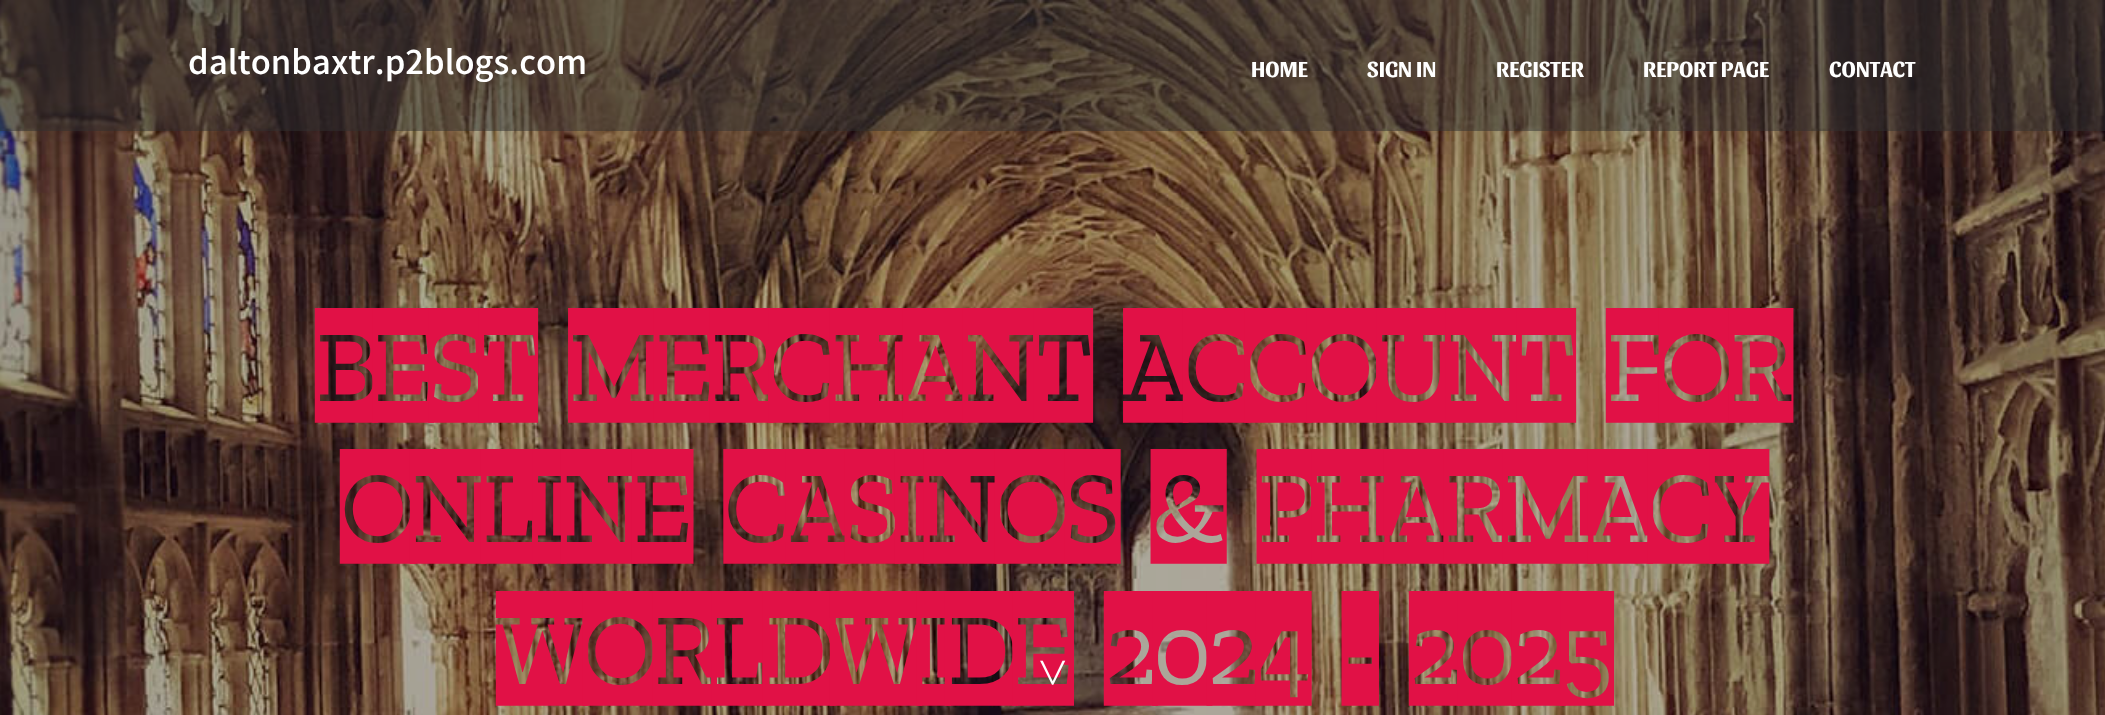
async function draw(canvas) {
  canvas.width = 2105
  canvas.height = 715
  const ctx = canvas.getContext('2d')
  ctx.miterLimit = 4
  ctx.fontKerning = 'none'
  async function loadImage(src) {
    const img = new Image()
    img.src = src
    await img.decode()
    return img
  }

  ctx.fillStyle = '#fff'
  ctx.fillRect(0, 0, 2105, 715)
  ctx.drawImage(await loadImage('image0.png'), 0, 0, 2105, 715)
  ctx.fillStyle = '#2f2f2f80'
  ctx.fillRect(0, 0, 2105, 131)
  ctx.font = 'bold 36.75px Varta'
  ctx.fillStyle = '#fff'
  ctx.fillText('daltonbaxtr.p2blogs.com', 188, 74)
  ctx.font = 'bold 22.75px Sansita'
  ctx.fillText('HOME', 1251, 77)
  ctx.fillText('SIGN IN', 1367, 77)
  ctx.fillText('REGISTER', 1496, 77)
  ctx.fillText('REPORT PAGE', 1643, 77)
  ctx.fillText('CONTACT', 1829, 77)
  ctx.letterSpacing = '-3.5px'
  ctx.wordSpacing = '14px'
  ctx.font = '300 101.5px Zilla Slab Highlight'
  ctx.fillStyle = '#e11146'
  ctx.fillText('BEST MERCHANT ACCOUNT FOR', 316, 401)
  ctx.fillText('ONLINE CASINOS & PHARMACY', 341, 542)
  ctx.fillText('WORLDWIDE 2024 - 2025', 497, 684)
  ctx.letterSpacing = '0px'
  ctx.wordSpacing = '0px'
  ctx.font = '52px Liberation Serif'
  ctx.fillStyle = '#fff'
  ctx.fillText('˅', 1038, 690)
}

draw(document.querySelector('canvas'))
